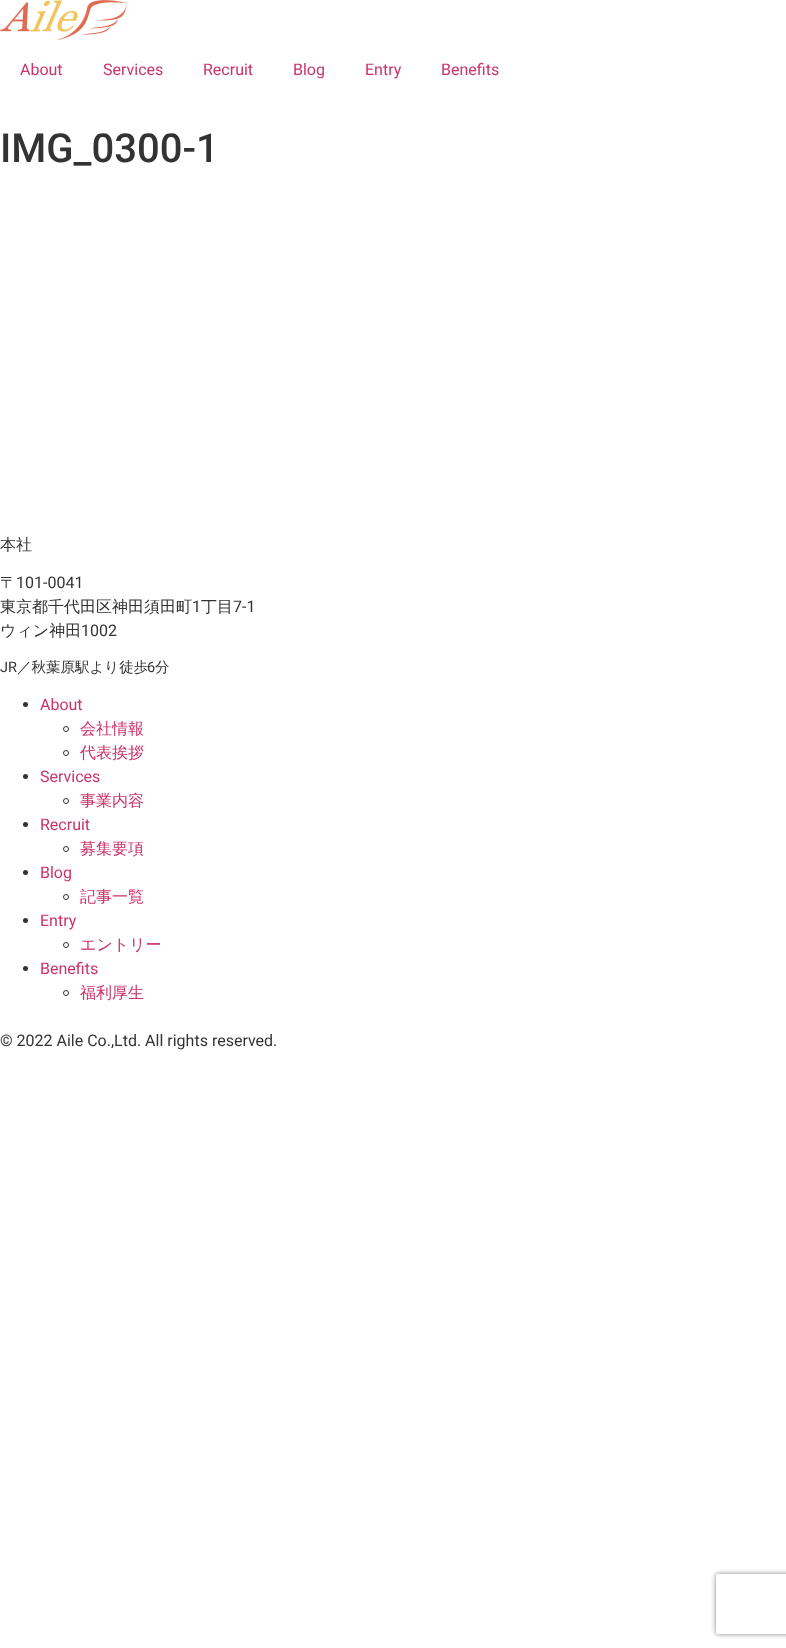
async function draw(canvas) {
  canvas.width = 786
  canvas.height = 1648
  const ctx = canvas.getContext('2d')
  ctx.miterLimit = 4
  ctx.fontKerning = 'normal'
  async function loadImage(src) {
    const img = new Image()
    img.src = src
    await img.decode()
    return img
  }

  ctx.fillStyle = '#fff'
  ctx.fillRect(0, 0, 786, 1648)
  ctx.drawImage(await loadImage('image0.png'), 0, 0, 127, 40)
  ctx.font = '16px Roboto'
  ctx.fillStyle = '#c36'
  ctx.fillText('About', 20, 75)
  ctx.fillText('Services', 103, 75)
  ctx.fillText('Recruit', 203, 75)
  ctx.fillText('Blog', 293, 75)
  ctx.fillText('Entry', 365, 75)
  ctx.fillText('Benefits', 441, 75)
  ctx.font = '500 40px Roboto'
  ctx.fillStyle = '#333'
  ctx.fillText('IMG_0300-1', 0, 162)
  ctx.font = '500 16px WenQuanYi Zen Hei'
  ctx.fillText('本社', 0, 550)
  ctx.fillText('〒', 0, 588)
  ctx.font = '16px Roboto'
  ctx.fillText('101-0041', 16, 588)
  ctx.font = '500 16px WenQuanYi Zen Hei'
  ctx.fillText('東京都千代田区神田須田町', 0, 612)
  ctx.font = '16px Roboto'
  ctx.fillText('1', 192, 612)
  ctx.font = '500 16px WenQuanYi Zen Hei'
  ctx.fillText('丁目', 201, 612)
  ctx.font = '16px Roboto'
  ctx.fillText('7-1', 233, 612)
  ctx.font = '500 16px WenQuanYi Zen Hei'
  ctx.fillText('ウィン神田', 0, 636)
  ctx.font = '16px Roboto'
  ctx.fillText('1002', 81, 636)
  ctx.font = '14.5px Roboto'
  ctx.fillText('JR', 0, 672)
  ctx.font = '500 14.5px WenQuanYi Zen Hei'
  ctx.fillText('／秋葉原駅より徒歩', 17, 672)
  ctx.font = '14.5px Roboto'
  ctx.fillText('6', 147, 672)
  ctx.font = '500 14.5px WenQuanYi Zen Hei'
  ctx.fillText('分', 155, 672)
  ctx.beginPath()
  ctx.arc(25.5, 704.5, 2.5, 0, 2 * Math.PI)
  ctx.fill()
  ctx.font = '16px Roboto'
  ctx.fillStyle = '#c36'
  ctx.fillText('About', 40, 710)
  ctx.beginPath()
  ctx.arc(66, 729, 2.5, 0, 2 * Math.PI)
  ctx.strokeStyle = '#333'
  ctx.stroke()
  ctx.font = '500 16px WenQuanYi Zen Hei'
  ctx.fillText('会社情報', 80, 734)
  ctx.beginPath()
  ctx.arc(66, 753, 2.5, 0, 2 * Math.PI)
  ctx.stroke()
  ctx.fillText('代表挨拶', 80, 758)
  ctx.fillStyle = '#333'
  ctx.beginPath()
  ctx.arc(25.5, 776.5, 2.5, 0, 2 * Math.PI)
  ctx.fill()
  ctx.font = '16px Roboto'
  ctx.fillStyle = '#c36'
  ctx.fillText('Services', 40, 782)
  ctx.beginPath()
  ctx.arc(66, 801, 2.5, 0, 2 * Math.PI)
  ctx.stroke()
  ctx.font = '500 16px WenQuanYi Zen Hei'
  ctx.fillText('事業内容', 80, 806)
  ctx.fillStyle = '#333'
  ctx.beginPath()
  ctx.arc(25.5, 824.5, 2.5, 0, 2 * Math.PI)
  ctx.fill()
  ctx.font = '16px Roboto'
  ctx.fillStyle = '#c36'
  ctx.fillText('Recruit', 40, 830)
  ctx.beginPath()
  ctx.arc(66, 849, 2.5, 0, 2 * Math.PI)
  ctx.stroke()
  ctx.font = '500 16px WenQuanYi Zen Hei'
  ctx.fillText('募集要項', 80, 854)
  ctx.fillStyle = '#333'
  ctx.beginPath()
  ctx.arc(25.5, 872.5, 2.5, 0, 2 * Math.PI)
  ctx.fill()
  ctx.font = '16px Roboto'
  ctx.fillStyle = '#c36'
  ctx.fillText('Blog', 40, 878)
  ctx.beginPath()
  ctx.arc(66, 897, 2.5, 0, 2 * Math.PI)
  ctx.stroke()
  ctx.font = '500 16px WenQuanYi Zen Hei'
  ctx.fillText('記事一覧', 80, 902)
  ctx.fillStyle = '#333'
  ctx.beginPath()
  ctx.arc(25.5, 920.5, 2.5, 0, 2 * Math.PI)
  ctx.fill()
  ctx.font = '16px Roboto'
  ctx.fillStyle = '#c36'
  ctx.fillText('Entry', 40, 926)
  ctx.beginPath()
  ctx.arc(66, 945, 2.5, 0, 2 * Math.PI)
  ctx.stroke()
  ctx.font = '500 16px WenQuanYi Zen Hei'
  ctx.fillText('エントリー', 80, 950)
  ctx.fillStyle = '#333'
  ctx.beginPath()
  ctx.arc(25.5, 968.5, 2.5, 0, 2 * Math.PI)
  ctx.fill()
  ctx.font = '16px Roboto'
  ctx.fillStyle = '#c36'
  ctx.fillText('Benefits', 40, 974)
  ctx.beginPath()
  ctx.arc(66, 993, 2.5, 0, 2 * Math.PI)
  ctx.stroke()
  ctx.font = '500 16px WenQuanYi Zen Hei'
  ctx.fillText('福利厚生', 80, 998)
  ctx.font = '16px Roboto'
  ctx.fillStyle = '#333'
  ctx.fillText('© 2022 Aile Co.,Ltd. All rights reserved.', 0, 1046)
  ctx.save()
  ctx.beginPath()
  ctx.moveTo(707, 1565)
  ctx.lineTo(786, 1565)
  ctx.lineTo(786, 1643)
  ctx.lineTo(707, 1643)
  ctx.closePath()
  ctx.moveTo(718, 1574)
  ctx.lineTo(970, 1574)
  ctx.bezierCurveTo(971, 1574, 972, 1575, 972, 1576)
  ctx.lineTo(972, 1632)
  ctx.bezierCurveTo(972, 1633, 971, 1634, 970, 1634)
  ctx.lineTo(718, 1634)
  ctx.bezierCurveTo(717, 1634, 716, 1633, 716, 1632)
  ctx.lineTo(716, 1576)
  ctx.bezierCurveTo(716, 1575, 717, 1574, 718, 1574)
  ctx.closePath()
  ctx.clip('evenodd')
  ctx.fillStyle = '#808080'
  ctx.filter = 'blur(2.5px)'
  ctx.beginPath()
  ctx.roundRect(716, 1574, 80, 60, 2)
  ctx.fill()
  ctx.filter = 'none'
  ctx.restore()
}

draw(document.querySelector('canvas'))
